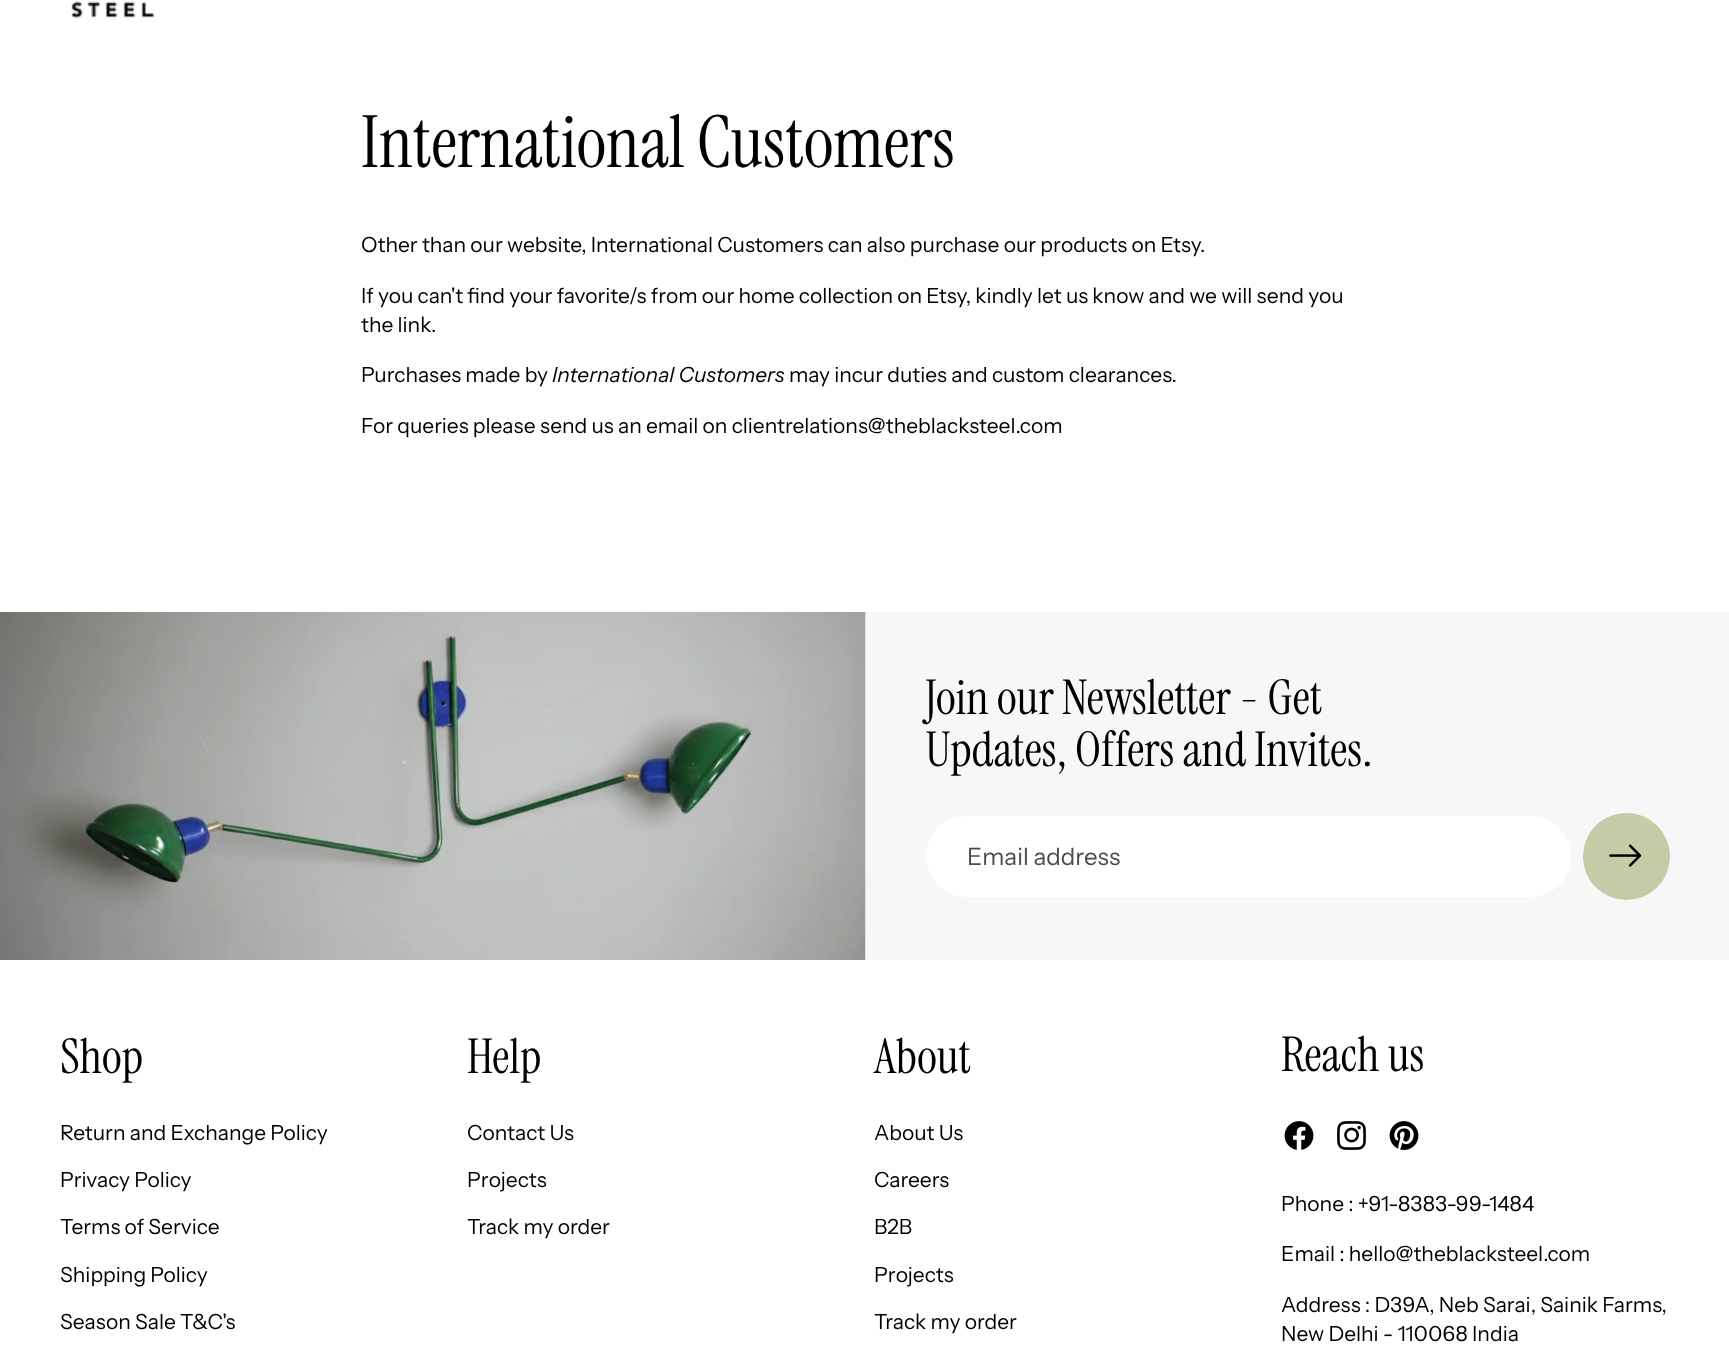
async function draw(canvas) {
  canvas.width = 1729
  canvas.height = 1369
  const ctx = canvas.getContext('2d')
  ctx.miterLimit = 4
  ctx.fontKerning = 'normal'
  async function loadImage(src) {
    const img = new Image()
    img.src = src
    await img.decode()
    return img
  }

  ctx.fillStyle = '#fff'
  ctx.fillRect(0, 0, 1729, 1369)
  ctx.drawImage(await loadImage('image0.png'), 71, 1, 84, 18)
  ctx.font = '72px Instrument Serif'
  ctx.fillStyle = '#000'
  ctx.fillText('International Customers', 361, 167)
  ctx.font = '21px Instrument Sans'
  ctx.fillText('Other than our website, International Customers can also purchase our products on Etsy.', 361, 252)
  ctx.fillText('If you can\'t find your favorite/s from our home collection on Etsy, kindly let us know and we will send you', 361, 303)
  ctx.fillText('the link.', 361, 332)
  ctx.fillText('Purchases made by', 361, 382)
  ctx.font = 'italic 21px Instrument Sans'
  ctx.fillText('International Customers', 552, 382)
  ctx.font = '21px Instrument Sans'
  ctx.fillText('may incur duties and custom clearances.', 789, 382)
  ctx.fillText('For queries please send us an email on clientrelations@theblacksteel.com', 361, 433)
  ctx.fillStyle = '#f7f7f7'
  ctx.fillRect(865, 612, 864, 348)
  ctx.drawImage(await loadImage('image1.png'), 0, 612, 866, 348)
  ctx.font = '48px Instrument Serif'
  ctx.fillStyle = '#000'
  ctx.fillText('Join our Newsletter - Get', 925, 714)
  ctx.fillText('Updates, Offers and Invites.', 925, 766)
  ctx.fillStyle = '#fff'
  ctx.beginPath()
  ctx.roundRect(926, 816, 645, 81, 40.5)
  ctx.fill()
  ctx.font = '24px Instrument Sans'
  ctx.fillStyle = '#4d4d4d'
  ctx.fillText('Email address', 967, 865)
  ctx.fillStyle = '#c3cca6'
  ctx.beginPath()
  ctx.arc(1626.5, 856.5, 43.5, 0, 2 * Math.PI)
  ctx.fill()
  ctx.drawImage(await loadImage('image2.png'), 1609, 844, 33, 23)
  ctx.font = '48px Instrument Serif'
  ctx.fillStyle = '#000'
  ctx.fillText('Shop', 60, 1073)
  ctx.font = '21px Instrument Sans'
  ctx.fillText('Return and Exchange Policy', 60, 1140)
  ctx.fillText('Privacy Policy', 60, 1187)
  ctx.fillText('Terms of Service', 60, 1234)
  ctx.fillText('Shipping Policy', 60, 1282)
  ctx.fillText('Season Sale T&C\'s', 60, 1329)
  ctx.font = '48px Instrument Serif'
  ctx.fillText('Help', 467, 1073)
  ctx.font = '21px Instrument Sans'
  ctx.fillText('Contact Us', 467, 1140)
  ctx.fillText('Projects', 467, 1187)
  ctx.fillText('Track my order', 467, 1234)
  ctx.font = '48px Instrument Serif'
  ctx.fillText('About', 874, 1073)
  ctx.font = '21px Instrument Sans'
  ctx.fillText('About Us', 874, 1140)
  ctx.fillText('Careers', 874, 1187)
  ctx.fillText('B2B', 874, 1234)
  ctx.fillText('Projects', 874, 1282)
  ctx.fillText('Track my order', 874, 1329)
  ctx.font = '48px Instrument Serif'
  ctx.fillText('Reach us', 1281, 1071)
  ctx.drawImage(await loadImage('image3.png'), 1284, 1121, 30, 29)
  ctx.drawImage(await loadImage('image4.png'), 1337, 1121, 29, 29)
  ctx.drawImage(await loadImage('image5.png'), 1389, 1121, 30, 29)
  ctx.font = '21px Instrument Sans'
  ctx.fillText('Phone : +91-8383-99-1484', 1281, 1211)
  ctx.fillText('Email : hello@theblacksteel.com', 1281, 1261)
  ctx.fillText('Address : D39A, Neb Sarai, Sainik Farms,', 1281, 1312)
  ctx.fillText('New Delhi - 110068 India', 1281, 1341)
}

draw(document.querySelector('canvas'))
